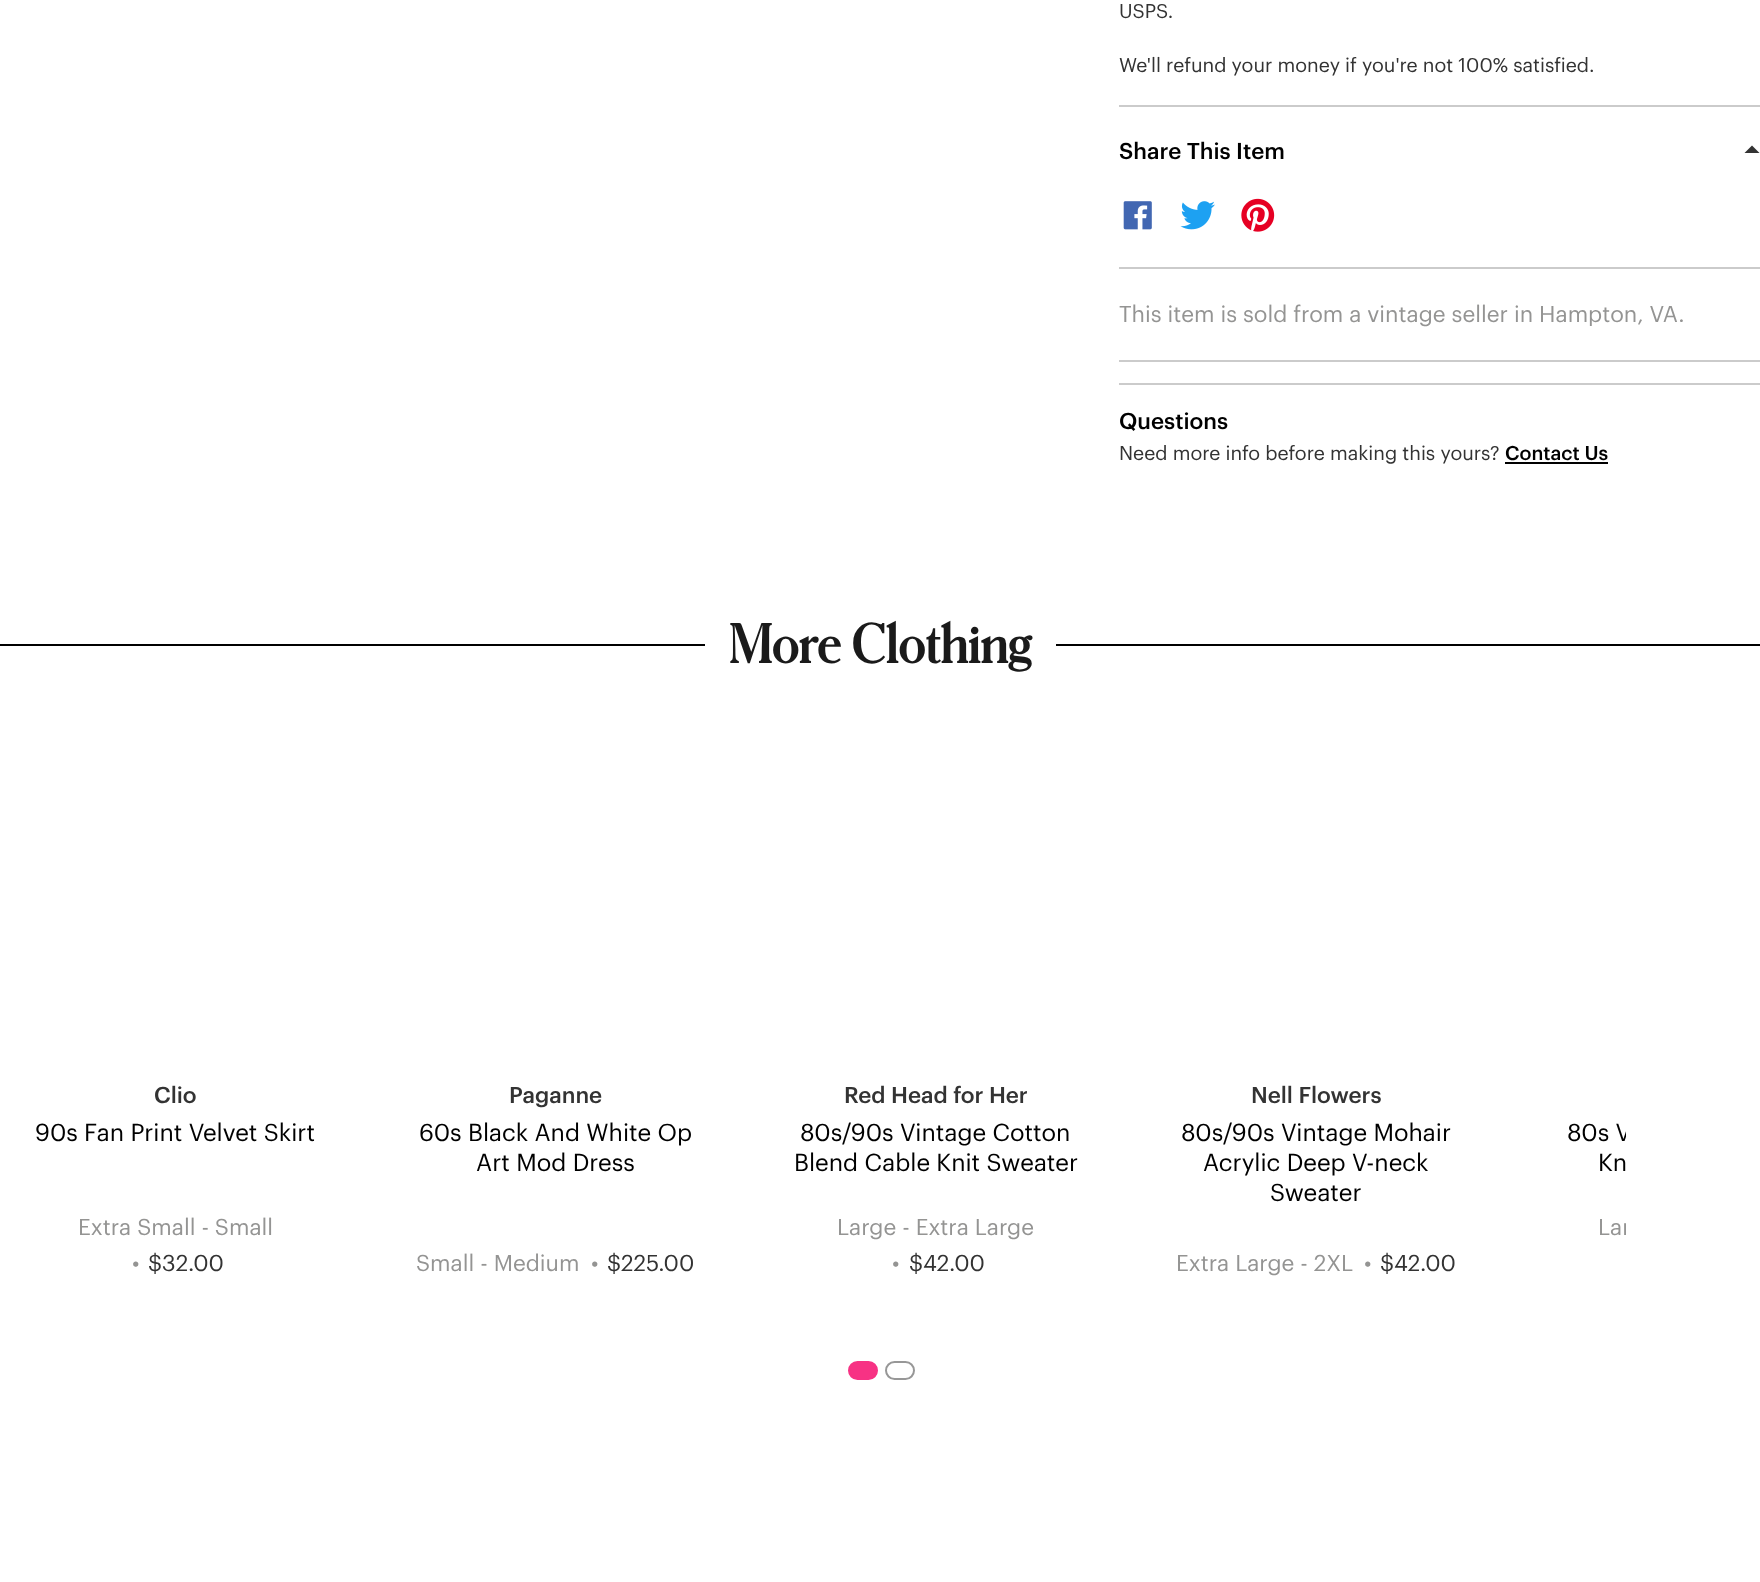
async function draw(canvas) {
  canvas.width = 1760
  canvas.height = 1582
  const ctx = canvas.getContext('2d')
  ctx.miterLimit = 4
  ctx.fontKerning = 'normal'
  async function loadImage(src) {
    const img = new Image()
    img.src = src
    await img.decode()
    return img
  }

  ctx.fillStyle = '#fff'
  ctx.fillRect(0, 0, 1760, 1582)
  ctx.font = '19.5px Graphik'
  ctx.fillStyle = '#333'
  ctx.fillText('USPS.', 1119, 18)
  ctx.fillText('We\'ll refund your money if you\'re not 100% satisfied.', 1119, 72)
  ctx.fillStyle = '#cbcbcb'
  ctx.fillRect(1119, 105, 641, 2)
  ctx.font = '500 22.5px Graphik'
  ctx.fillStyle = '#000'
  ctx.fillText('Share This Item', 1119, 159)
  ctx.fillStyle = '#333'
  ctx.beginPath()
  ctx.moveTo(1744.5, 153)
  ctx.lineTo(1752, 145.5)
  ctx.lineTo(1759.5, 153)
  ctx.closePath()
  ctx.fill('evenodd')
  ctx.drawImage(await loadImage('image0.png'), 1123, 201, 29, 29)
  ctx.drawImage(await loadImage('image1.png'), 1180, 201, 35, 29)
  ctx.drawImage(await loadImage('image2.png'), 1241, 198, 34, 34)
  ctx.fillStyle = '#cbcbcb'
  ctx.fillRect(1119, 267, 641, 2)
  ctx.font = '22.5px Graphik'
  ctx.fillStyle = '#949493'
  ctx.fillText('This item is sold from a vintage seller in Hampton, VA.', 1119, 322)
  ctx.fillStyle = '#cbcbcb'
  ctx.fillRect(1119, 360, 641, 2)
  ctx.fillRect(1119, 383, 641, 2)
  ctx.font = '500 22.5px Graphik'
  ctx.fillStyle = '#000'
  ctx.fillText('Questions', 1119, 429)
  ctx.font = '19.5px Graphik'
  ctx.fillStyle = '#333'
  ctx.fillText('Need more info before making this yours?', 1119, 460)
  ctx.font = '500 19.5px Graphik'
  ctx.fillStyle = '#000'
  ctx.fillText('Contact Us', 1505, 460)
  ctx.fillRect(1505, 462, 103, 2)
  ctx.fillRect(0, 644, 1760, 2)
  ctx.fillStyle = '#fff'
  ctx.fillRect(705, 644, 351, 2)
  ctx.font = 'bold 51.5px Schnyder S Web'
  ctx.fillStyle = '#1a1a1a'
  ctx.fillText('More Clothing', 729, 663)
  ctx.font = '500 22.5px Graphik'
  ctx.fillStyle = '#333'
  ctx.fillText('Clio', 154, 1103)
  ctx.font = '24px Graphik'
  ctx.fillStyle = '#000'
  ctx.fillText('90s Fan Print Velvet Skirt', 35, 1141)
  ctx.font = '22.5px Graphik'
  ctx.fillStyle = '#949493'
  ctx.fillText('Extra Small - Small', 78, 1235)
  ctx.fillText('•', 132, 1271)
  ctx.fillStyle = '#333'
  ctx.fillText('$32.00', 148, 1271)
  ctx.font = '500 22.5px Graphik'
  ctx.fillText('Paganne', 509, 1103)
  ctx.font = '24px Graphik'
  ctx.fillStyle = '#000'
  ctx.fillText('60s Black And White Op', 419, 1141)
  ctx.fillText('Art Mod Dress', 476, 1171)
  ctx.font = '22.5px Graphik'
  ctx.fillStyle = '#949493'
  ctx.fillText('Small - Medium', 416, 1271)
  ctx.fillText('•', 591, 1271)
  ctx.fillStyle = '#333'
  ctx.fillText('$225.00', 607, 1271)
  ctx.font = '500 22.5px Graphik'
  ctx.fillText('Red Head for Her', 844, 1103)
  ctx.font = '24px Graphik'
  ctx.fillStyle = '#000'
  ctx.fillText('80s/90s Vintage Cotton', 800, 1141)
  ctx.fillText('Blend Cable Knit Sweater', 794, 1171)
  ctx.font = '22.5px Graphik'
  ctx.fillStyle = '#949493'
  ctx.fillText('Large - Extra Large', 837, 1235)
  ctx.fillText('•', 892, 1271)
  ctx.fillStyle = '#333'
  ctx.fillText('$42.00', 909, 1271)
  ctx.font = '500 22.5px Graphik'
  ctx.fillText('Nell Flowers', 1251, 1103)
  ctx.font = '24px Graphik'
  ctx.fillStyle = '#000'
  ctx.fillText('80s/90s Vintage Mohair', 1181, 1141)
  ctx.fillText('Acrylic Deep V-neck', 1203, 1171)
  ctx.fillText('Sweater', 1270, 1201)
  ctx.font = '22.5px Graphik'
  ctx.fillStyle = '#949493'
  ctx.fillText('Extra Large - 2XL', 1176, 1271)
  ctx.fillText('•', 1364, 1271)
  ctx.fillStyle = '#333'
  ctx.fillText('$42.00', 1380, 1271)
  ctx.save()
  ctx.beginPath()
  ctx.rect(0, 701, 1626, 637)
  ctx.clip()
  ctx.font = '24px Graphik'
  ctx.fillStyle = '#000'
  ctx.fillText('80s V', 1567, 1141)
  ctx.restore()
  ctx.font = '24px Graphik'
  ctx.fillStyle = '#000'
  ctx.fillText('Kn', 1598, 1171)
  ctx.save()
  ctx.beginPath()
  ctx.rect(0, 701, 1626, 637)
  ctx.clip()
  ctx.font = '22.5px Graphik'
  ctx.fillStyle = '#949493'
  ctx.fillText('Lar', 1598, 1235)
  ctx.restore()
  ctx.fillStyle = '#f73284'
  ctx.beginPath()
  ctx.roundRect(849, 1362, 28, 17, 8.5)
  ctx.fill()
  ctx.strokeStyle = '#f73284'
  ctx.lineWidth = 2
  ctx.stroke()
  ctx.beginPath()
  ctx.roundRect(886, 1362, 28, 17, 8.5)
  ctx.strokeStyle = '#979797'
  ctx.stroke()
}

draw(document.querySelector('canvas'))
